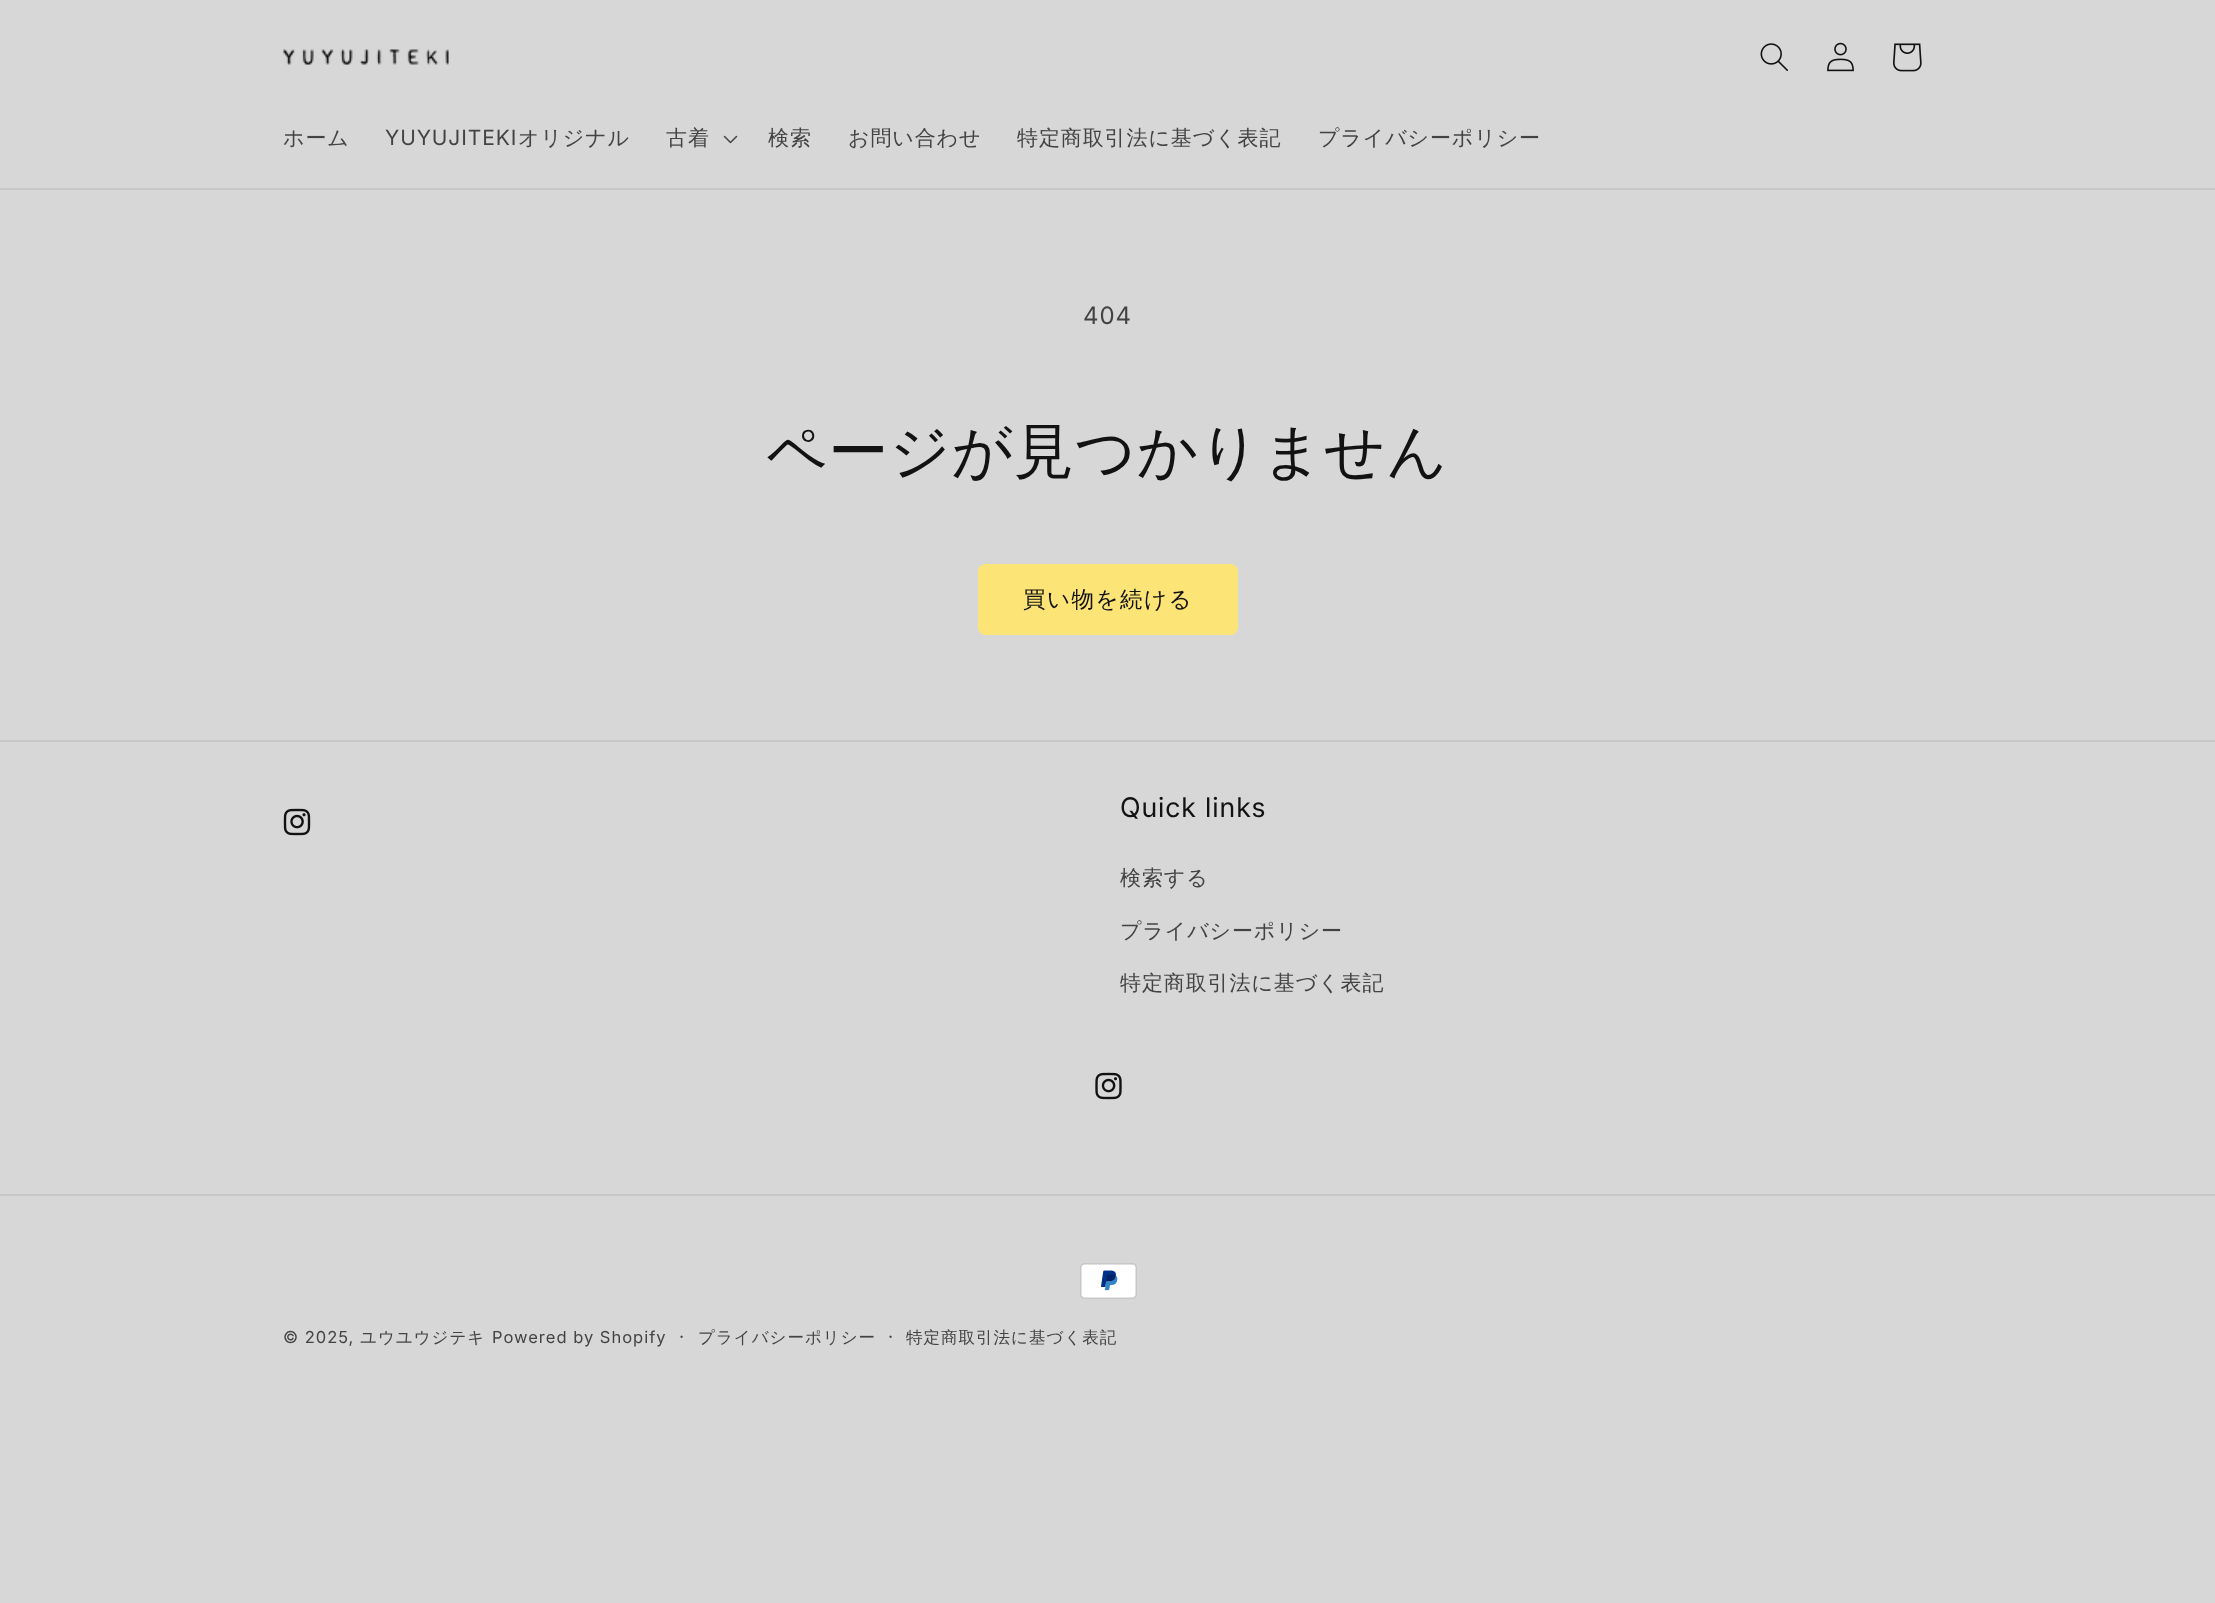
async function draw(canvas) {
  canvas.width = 2215
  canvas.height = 1603
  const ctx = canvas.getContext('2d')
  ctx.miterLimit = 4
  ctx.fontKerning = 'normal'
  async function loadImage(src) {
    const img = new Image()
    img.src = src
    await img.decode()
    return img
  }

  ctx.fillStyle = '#d7d7d7'
  ctx.fillRect(0, 0, 2215, 1603)
  ctx.fillStyle = '#c7c7c7'
  ctx.fillRect(0, 188, 2215, 2)
  ctx.drawImage(await loadImage('image0.png'), 283, 49, 166, 16)
  ctx.drawImage(await loadImage('image1.png'), 1760, 43, 28, 28)
  ctx.drawImage(await loadImage('image2.png'), 1827, 42, 27, 30)
  ctx.drawImage(await loadImage('image3.png'), 1893, 43, 29, 29)
  ctx.letterSpacing = '0.9px'
  ctx.font = '500 21px WenQuanYi Zen Hei'
  ctx.fillStyle = '#434343'
  ctx.fillText('ホーム', 283, 145)
  ctx.font = '21px Inter'
  ctx.fillText('YUYUJITEKI', 385, 145)
  ctx.font = '500 21px WenQuanYi Zen Hei'
  ctx.fillText('オリジナル', 518, 145)
  ctx.fillText('古着', 666, 145)
  ctx.drawImage(await loadImage('image4.png'), 723, 135, 15, 9)
  ctx.fillText('検索', 768, 145)
  ctx.fillText('お問い合わせ', 848, 145)
  ctx.fillText('特定商取引法に基づく表記', 1017, 145)
  ctx.fillText('プライバシーポリシー', 1318, 145)
  ctx.font = '24px Inter'
  ctx.fillText('404', 1083, 324)
  ctx.font = '500 60px WenQuanYi Zen Hei'
  ctx.fillStyle = '#121212'
  ctx.fillText('ページが見つかりません', 766, 472)
  ctx.fillStyle = '#fce477'
  ctx.beginPath()
  ctx.roundRect(978, 564, 260, 71, 8)
  ctx.fill()
  ctx.beginPath()
  ctx.roundRect(979, 565, 258, 69, 7)
  ctx.strokeStyle = '#fce477'
  ctx.lineWidth = 2
  ctx.stroke()
  ctx.letterSpacing = '1.5px'
  ctx.font = '500 22.5px WenQuanYi Zen Hei'
  ctx.fillStyle = '#121212'
  ctx.fillText('買い物を続ける', 1023, 607)
  ctx.fillStyle = '#c7c7c7'
  ctx.fillRect(0, 740, 2215, 2)
  ctx.drawImage(await loadImage('image5.png'), 283, 808, 28, 28)
  ctx.letterSpacing = '0.9px'
  ctx.font = '27px "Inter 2"'
  ctx.fillStyle = '#121212'
  ctx.fillText('Quick links', 1120, 817)
  ctx.font = '500 21px WenQuanYi Zen Hei'
  ctx.fillStyle = '#434343'
  ctx.fillText('検索する', 1120, 885)
  ctx.fillText('プライバシーポリシー', 1120, 938)
  ctx.fillText('特定商取引法に基づく表記', 1120, 990)
  ctx.drawImage(await loadImage('image6.png'), 1095, 1072, 27, 28)
  ctx.fillStyle = '#c7c7c7'
  ctx.fillRect(0, 1194, 2215, 2)
  ctx.drawImage(await loadImage('image7.png'), 1080, 1263, 57, 36)
  ctx.letterSpacing = '1px'
  ctx.font = '16.5px Inter'
  ctx.fillStyle = '#434343'
  ctx.fillText('© 2025,', 283, 1343)
  ctx.font = '500 16.5px WenQuanYi Zen Hei'
  ctx.fillText('ユウユウジテキ', 360, 1343)
  ctx.font = '16.5px Inter'
  ctx.fillText('Powered by Shopify', 492, 1343)
  ctx.font = '18px Inter'
  ctx.fillText('·', 679, 1343)
  ctx.font = '500 16.5px WenQuanYi Zen Hei'
  ctx.fillText('プライバシーポリシー', 698, 1343)
  ctx.font = '18px Inter'
  ctx.fillText('·', 888, 1343)
  ctx.font = '500 16.5px WenQuanYi Zen Hei'
  ctx.fillText('特定商取引法に基づく表記', 906, 1343)
}

draw(document.querySelector('canvas'))
